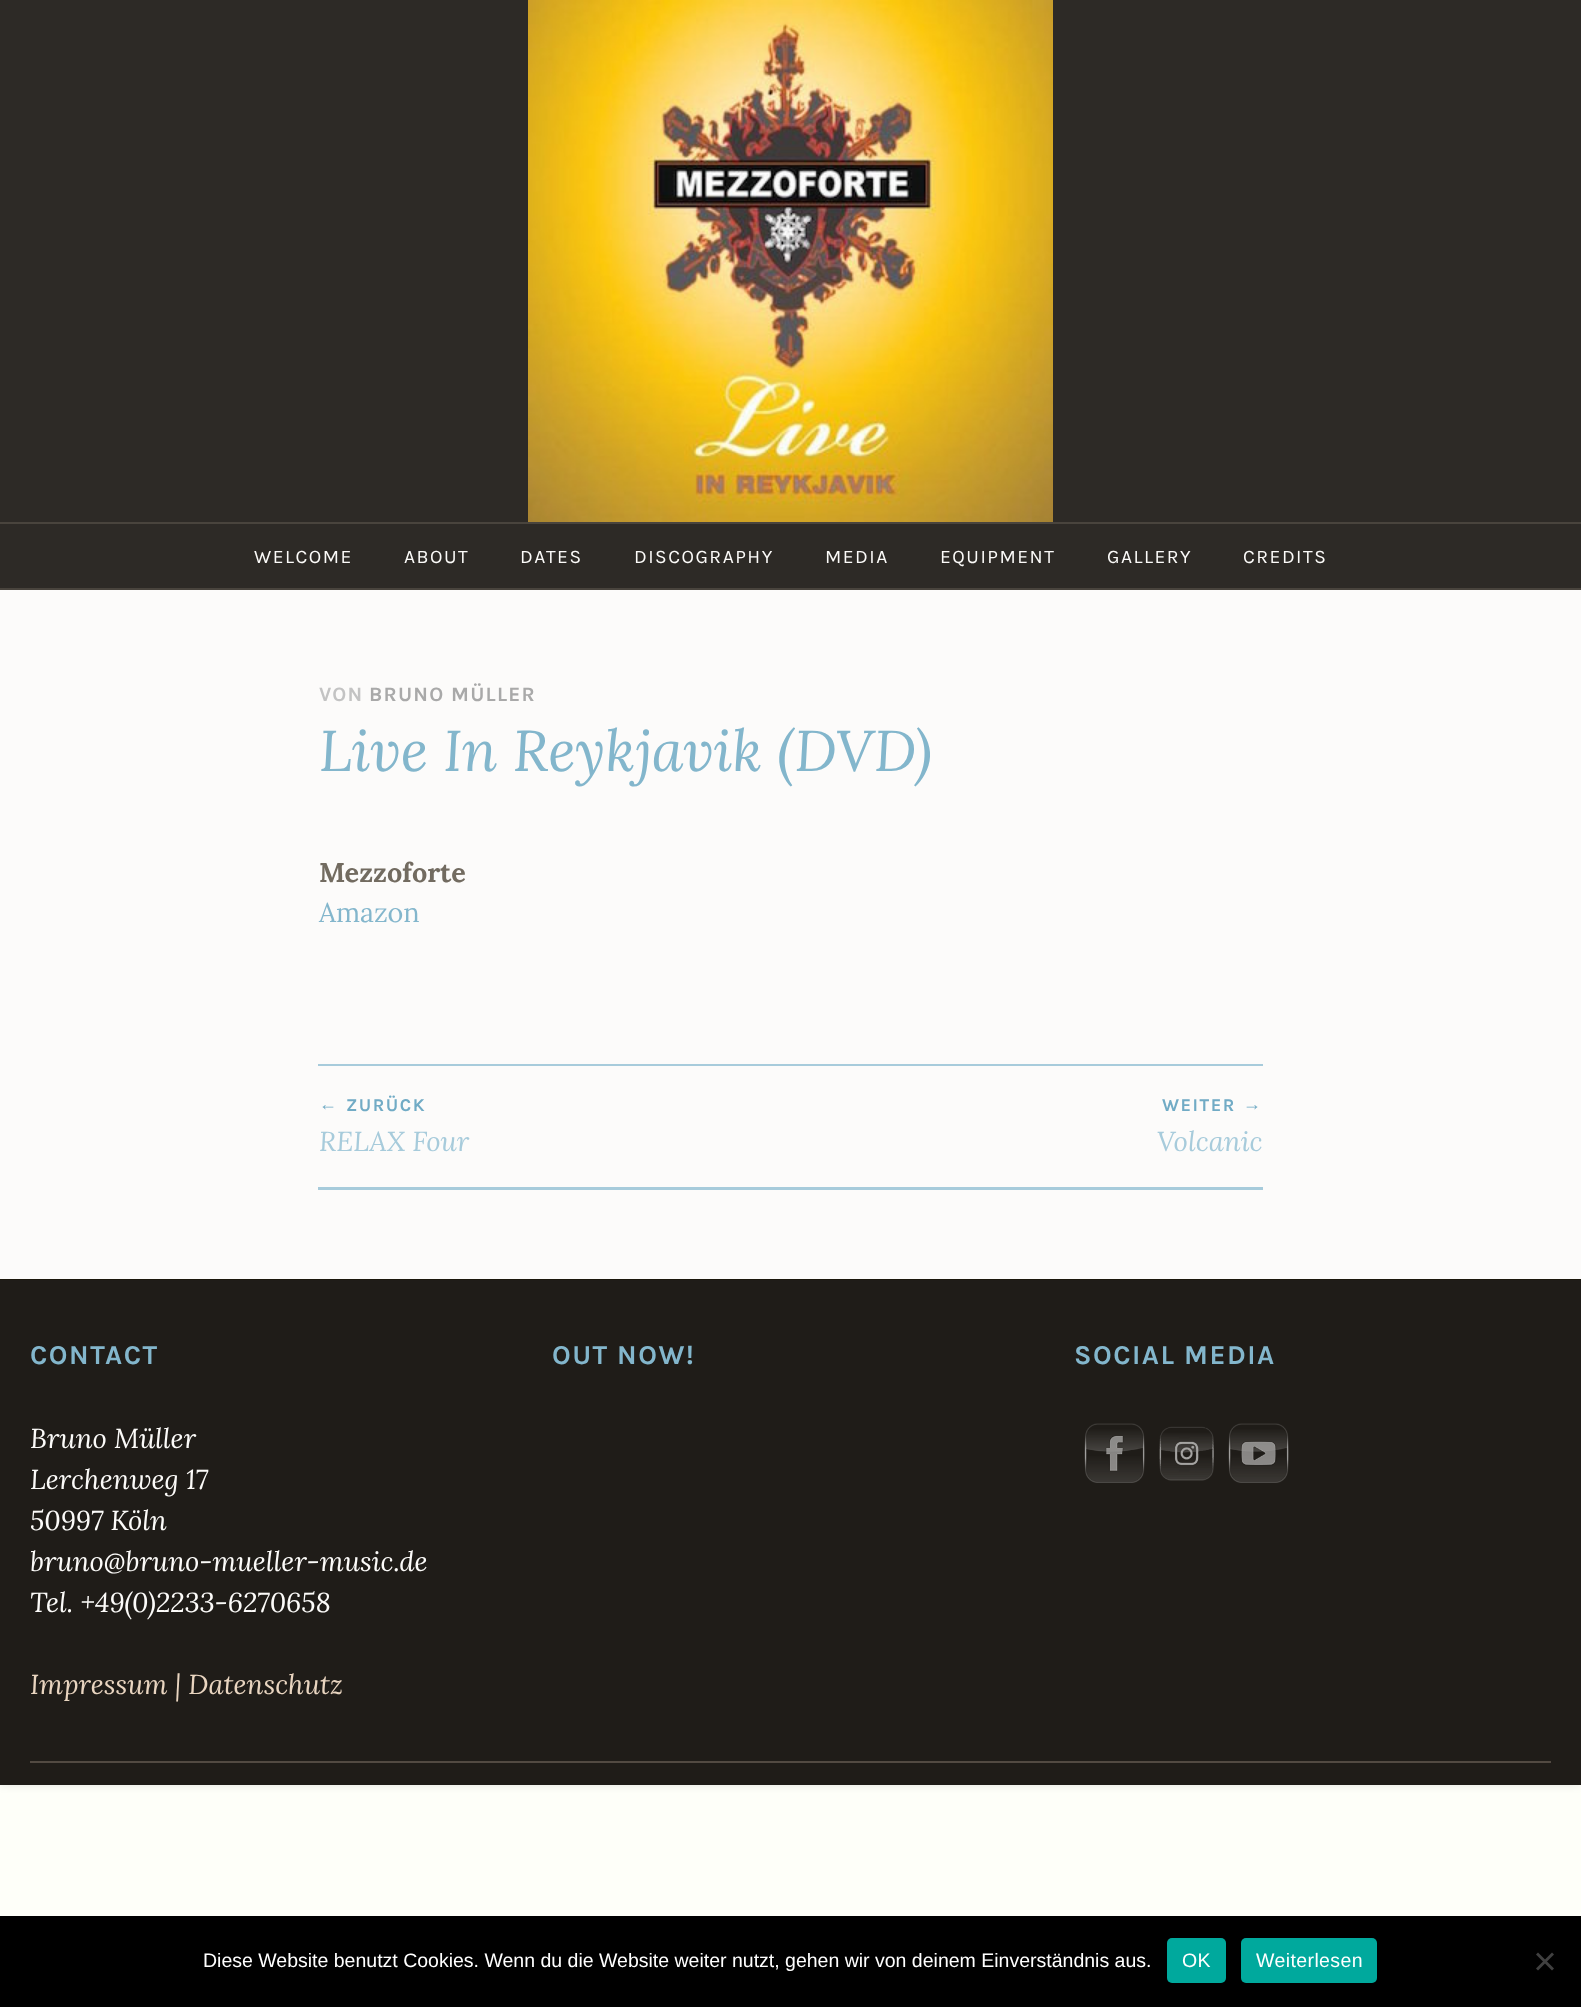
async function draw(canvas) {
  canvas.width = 1581
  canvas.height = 2007
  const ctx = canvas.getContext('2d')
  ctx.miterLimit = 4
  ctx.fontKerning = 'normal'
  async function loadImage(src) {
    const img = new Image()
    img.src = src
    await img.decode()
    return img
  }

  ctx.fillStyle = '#fefff9'
  ctx.fillRect(0, 0, 1581, 2007)
  ctx.fillStyle = '#0000001a'
  ctx.filter = 'blur(4.5px)'
  ctx.beginPath()
  ctx.rect(0, 0, 1581, 1785)
  ctx.fill()
  ctx.filter = 'none'
  ctx.fillStyle = '#fcfbfa'
  ctx.fillRect(0, 590, 1581, 689)
  ctx.fillStyle = '#2d2a26'
  ctx.fillRect(0, 0, 1581, 522)
  ctx.drawImage(await loadImage('image0.png'), 528, 0, 525, 522)
  ctx.fillRect(0, 524, 1581, 64)
  ctx.fillStyle = '#49443d'
  ctx.fillRect(0, 522, 1581, 2)
  ctx.fillRect(0, 588, 1581, 2)
  ctx.letterSpacing = '1.5px'
  ctx.font = '19.25px Karla'
  ctx.fillStyle = '#fcfbf9'
  ctx.fillText('WELCOME', 254, 563)
  ctx.fillText('ABOUT', 404, 563)
  ctx.fillText('DATES', 520, 563)
  ctx.fillText('DISCOGRAPHY', 634, 563)
  ctx.fillText('MEDIA', 825, 563)
  ctx.fillText('EQUIPMENT', 940, 563)
  ctx.fillText('GALLERY', 1107, 563)
  ctx.fillText('CREDITS', 1243, 563)
  ctx.letterSpacing = '1.25px'
  ctx.font = 'bold 20.5px Karla'
  ctx.fillStyle = '#c3c3c3'
  ctx.fillText('VON', 319, 701)
  ctx.fillStyle = '#a9a9a9'
  ctx.fillText('BRUNO MÜLLER', 369, 701)
  ctx.letterSpacing = '0px'
  ctx.font = 'italic 57.6px Lora'
  ctx.fillStyle = '#83b6cc'
  ctx.fillText('Live In Reykjavik (DVD)', 319, 771)
  ctx.font = 'bold 27px Lora'
  ctx.fillStyle = '#726b60'
  ctx.fillText('Mezzoforte', 319, 882)
  ctx.font = '27px Lora'
  ctx.fillStyle = '#83b6cc'
  ctx.fillText('Amazon', 319, 922)
  ctx.fillStyle = '#a7cbdb'
  ctx.fillRect(318, 1064, 945, 2)
  ctx.fillRect(318, 1187, 945, 3)
  ctx.letterSpacing = '1.5px'
  ctx.font = '18px Liberation Serif'
  ctx.fillStyle = '#71abc5'
  ctx.fillText('←', 319, 1110)
  ctx.font = 'bold 18px Karla'
  ctx.fillText('ZURÜCK', 346, 1111)
  ctx.letterSpacing = '0px'
  ctx.font = 'italic 27.5px Lora'
  ctx.fillStyle = '#a7cbdb'
  ctx.fillText('RELAX Four', 319, 1151)
  ctx.letterSpacing = '1.5px'
  ctx.font = 'bold 18px Karla'
  ctx.fillStyle = '#71abc5'
  ctx.fillText('WEITER', 1162, 1111)
  ctx.font = '18px Liberation Serif'
  ctx.fillText('→', 1243, 1110)
  ctx.letterSpacing = '0px'
  ctx.font = 'italic 27.5px Lora'
  ctx.fillStyle = '#a7cbdb'
  ctx.fillText('Volcanic', 1157, 1151)
  ctx.fillStyle = '#1b170c'
  ctx.fillRect(0, 1279, 1581, 1)
  ctx.fillStyle = '#1f1c18'
  ctx.fillRect(0, 1280, 1581, 505)
  ctx.fillStyle = '#524a42'
  ctx.fillRect(30, 1761, 1521, 2)
  ctx.letterSpacing = '1.5px'
  ctx.font = 'bold 27.4px Karla'
  ctx.fillStyle = '#83b6cc'
  ctx.fillText('CONTACT', 30, 1364)
  ctx.letterSpacing = '0px'
  ctx.font = 'italic 27.4px Lora'
  ctx.fillStyle = '#fcfbf9'
  ctx.fillText('Bruno Müller', 30, 1448)
  ctx.fillText('Lerchenweg 17', 30, 1489)
  ctx.fillText('50997 Köln', 30, 1530)
  ctx.fillText('bruno@bruno-mueller-music.de', 30, 1571)
  ctx.fillText('Tel. +49(0)2233-6270658', 30, 1612)
  ctx.fillStyle = '#e9d5c0'
  ctx.fillText('Impressum | Datenschutz', 30, 1694)
  ctx.letterSpacing = '1.5px'
  ctx.font = 'bold 27.4px Karla'
  ctx.fillStyle = '#83b6cc'
  ctx.fillText('OUT NOW!', 552, 1364)
  ctx.fillText('SOCIAL MEDIA', 1074, 1364)
  ctx.drawImage(await loadImage('image1.png'), 1084, 1423, 61, 60)
  ctx.drawImage(await loadImage('image2.png'), 1159, 1426, 55, 55)
  ctx.drawImage(await loadImage('image3.png'), 1228, 1423, 61, 60)
  ctx.fillStyle = '#000'
  ctx.fillRect(0, 1916, 1581, 91)
  ctx.letterSpacing = '0px'
  ctx.font = '19.5px Liberation Sans'
  ctx.fillStyle = '#fff'
  ctx.fillText('Diese Website benutzt Cookies. Wenn du die Website weiter nutzt, gehen wir von deinem Einverständnis aus.', 203, 1967)
  ctx.fillStyle = '#00a99d'
  ctx.beginPath()
  ctx.roundRect(1167, 1938, 59, 45, 5)
  ctx.fill()
  ctx.letterSpacing = '0.4px'
  ctx.fillStyle = '#fff'
  ctx.fillText('OK', 1182, 1967)
  ctx.fillStyle = '#00a99d'
  ctx.beginPath()
  ctx.roundRect(1241, 1938, 136, 45, 5)
  ctx.fill()
  ctx.fillStyle = '#fff'
  ctx.fillText('Weiterlesen', 1256, 1967)
  ctx.fillStyle = '#404040'
  ctx.beginPath()
  ctx.moveTo(1552, 1952.5)
  ctx.lineTo(1554, 1954.5)
  ctx.lineTo(1538, 1970.5)
  ctx.lineTo(1536, 1968.5)
  ctx.closePath()
  ctx.fill()
  ctx.beginPath()
  ctx.moveTo(1536, 1954.5)
  ctx.lineTo(1538, 1952.5)
  ctx.lineTo(1554, 1968.5)
  ctx.lineTo(1552, 1970.5)
  ctx.closePath()
  ctx.fill()
}

draw(document.querySelector('canvas'))
